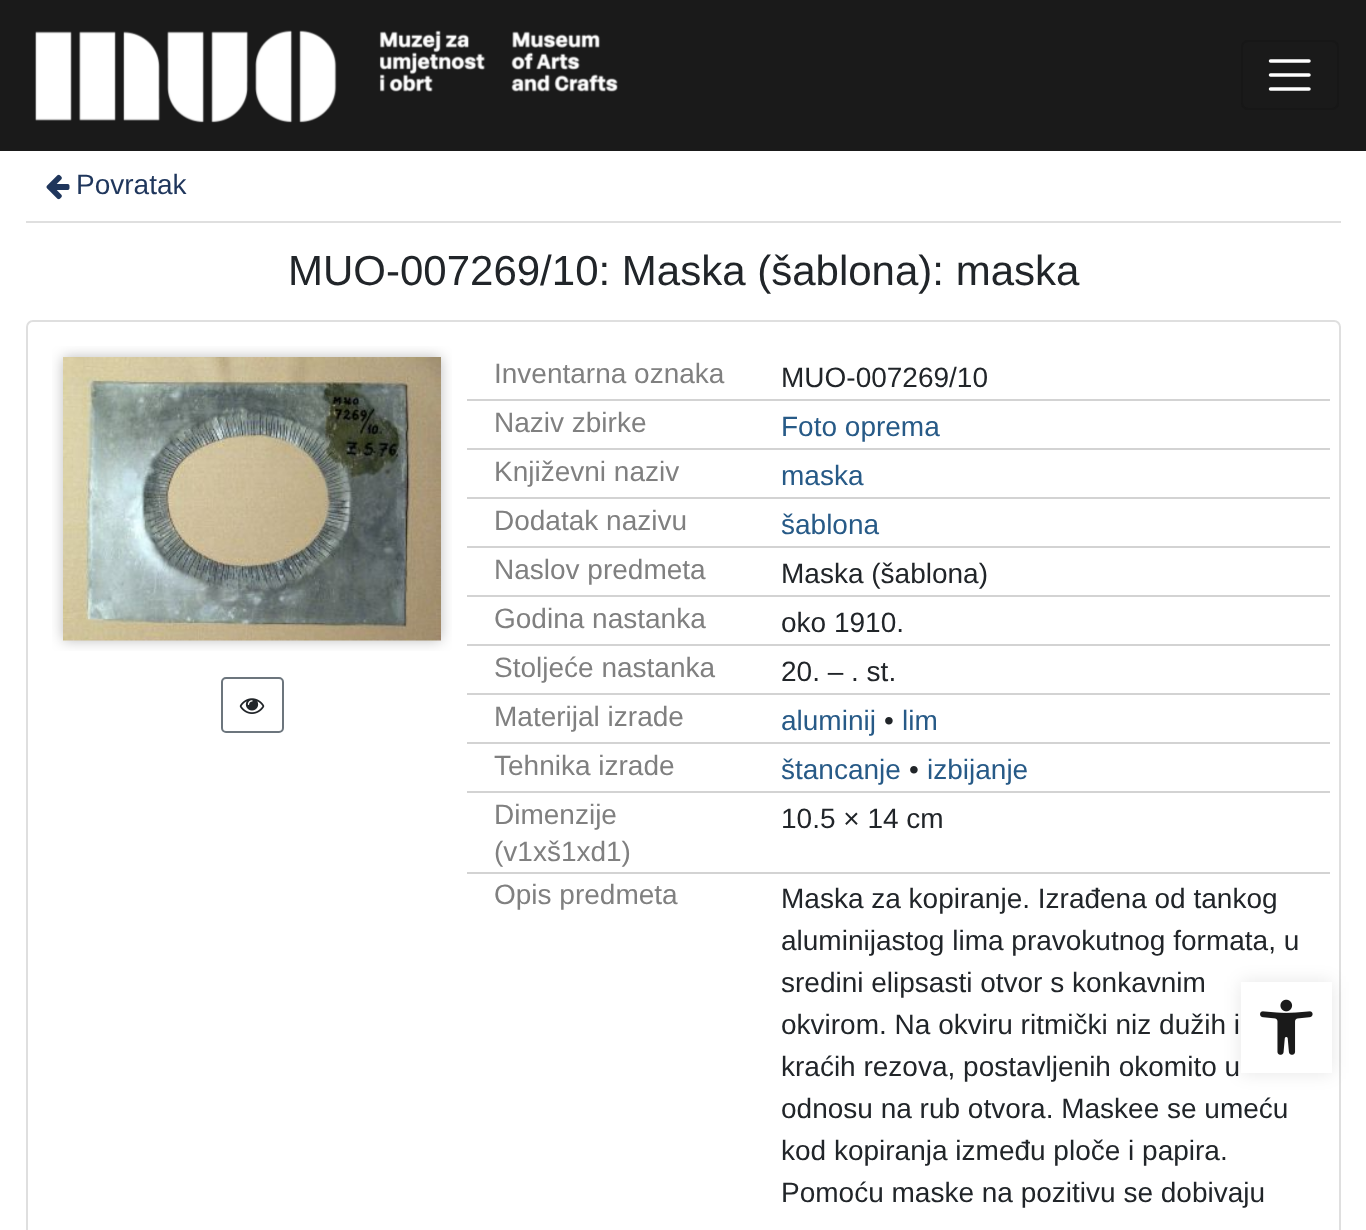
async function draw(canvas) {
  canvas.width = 1366
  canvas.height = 1230
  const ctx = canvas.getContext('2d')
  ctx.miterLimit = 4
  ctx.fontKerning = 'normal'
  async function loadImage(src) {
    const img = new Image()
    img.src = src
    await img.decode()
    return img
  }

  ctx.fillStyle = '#fff'
  ctx.fillRect(0, 0, 1366, 1230)
  ctx.fillStyle = '#1a1a1a'
  ctx.fillRect(0, 0, 1366, 151)
  ctx.drawImage(await loadImage('image0.png'), 35, 30, 583, 93)
  ctx.beginPath()
  ctx.roundRect(1242, 41, 96, 68, 6)
  ctx.strokeStyle = '#171717'
  ctx.lineWidth = 2
  ctx.stroke()
  ctx.beginPath()
  ctx.moveTo(1270.5, 61)
  ctx.lineTo(1309, 61)
  ctx.moveTo(1270.5, 75)
  ctx.lineTo(1309, 75)
  ctx.moveTo(1270.5, 89)
  ctx.lineTo(1309, 89)
  ctx.strokeStyle = '#fff'
  ctx.lineWidth = 3.5
  ctx.lineCap = 'round'
  ctx.stroke()
  ctx.fillStyle = '#dfdfdf'
  ctx.fillRect(26, 221, 1315, 2)
  ctx.drawImage(await loadImage('image1.png'), 46, 174, 24, 26)
  ctx.font = '28px Liberation Sans'
  ctx.fillStyle = '#1f365c'
  ctx.fillText('Povratak', 76, 194)
  ctx.font = '42px Liberation Sans'
  ctx.fillStyle = '#212529'
  ctx.fillText('MUO-007269/10: Maska (šablona): maska', 288, 285)
  ctx.beginPath()
  ctx.roundRect(27, 321, 1313, 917, 6)
  ctx.strokeStyle = '#dfdfdf'
  ctx.lineWidth = 2
  ctx.stroke()
  ctx.drawImage(await loadImage('image2.png'), 52, 346, 400, 305)
  ctx.beginPath()
  ctx.roundRect(222, 678, 61, 54, 4)
  ctx.strokeStyle = '#6c757d'
  ctx.stroke()
  ctx.drawImage(await loadImage('image3.png'), 239, 698, 26, 16)
  ctx.fillStyle = '#d3d3d3'
  ctx.fillRect(467, 399, 863, 2)
  ctx.font = '28px Liberation Sans'
  ctx.fillStyle = '#808080'
  ctx.fillText('Inventarna oznaka', 494, 383)
  ctx.fillStyle = '#212529'
  ctx.fillText('MUO-007269/10', 781, 387)
  ctx.fillStyle = '#d3d3d3'
  ctx.fillRect(467, 448, 863, 2)
  ctx.fillStyle = '#808080'
  ctx.fillText('Naziv zbirke', 494, 432)
  ctx.fillStyle = '#275a87'
  ctx.fillText('Foto oprema', 781, 436)
  ctx.fillStyle = '#d3d3d3'
  ctx.fillRect(467, 497, 863, 2)
  ctx.fillStyle = '#808080'
  ctx.fillText('Književni naziv', 494, 481)
  ctx.fillStyle = '#275a87'
  ctx.fillText('maska', 781, 485)
  ctx.fillStyle = '#d3d3d3'
  ctx.fillRect(467, 546, 863, 2)
  ctx.fillStyle = '#808080'
  ctx.fillText('Dodatak nazivu', 494, 530)
  ctx.fillStyle = '#275a87'
  ctx.fillText('šablona', 781, 534)
  ctx.fillStyle = '#d3d3d3'
  ctx.fillRect(467, 595, 863, 2)
  ctx.fillStyle = '#808080'
  ctx.fillText('Naslov predmeta', 494, 579)
  ctx.fillStyle = '#212529'
  ctx.fillText('Maska (šablona)', 781, 583)
  ctx.fillStyle = '#d3d3d3'
  ctx.fillRect(467, 644, 863, 2)
  ctx.fillStyle = '#808080'
  ctx.fillText('Godina nastanka', 494, 628)
  ctx.fillStyle = '#212529'
  ctx.fillText('oko 1910.', 781, 632)
  ctx.fillStyle = '#d3d3d3'
  ctx.fillRect(467, 693, 863, 2)
  ctx.fillStyle = '#808080'
  ctx.fillText('Stoljeće nastanka', 494, 677)
  ctx.fillStyle = '#212529'
  ctx.fillText('20. – . st.', 781, 681)
  ctx.fillStyle = '#d3d3d3'
  ctx.fillRect(467, 742, 863, 2)
  ctx.fillStyle = '#808080'
  ctx.fillText('Materijal izrade', 494, 726)
  ctx.fillStyle = '#275a87'
  ctx.fillText('aluminij', 781, 730)
  ctx.fillStyle = '#212529'
  ctx.fillText('•', 884, 730)
  ctx.fillStyle = '#275a87'
  ctx.fillText('lim', 902, 730)
  ctx.fillStyle = '#d3d3d3'
  ctx.fillRect(467, 791, 863, 2)
  ctx.fillStyle = '#808080'
  ctx.fillText('Tehnika izrade', 494, 775)
  ctx.fillStyle = '#275a87'
  ctx.fillText('štancanje', 781, 779)
  ctx.fillStyle = '#212529'
  ctx.fillText('•', 909, 779)
  ctx.fillStyle = '#275a87'
  ctx.fillText('izbijanje', 927, 779)
  ctx.fillStyle = '#d3d3d3'
  ctx.fillRect(467, 872, 863, 2)
  ctx.fillStyle = '#808080'
  ctx.fillText('Dimenzije', 494, 824)
  ctx.fillText('(v1xš1xd1)', 494, 861)
  ctx.fillStyle = '#212529'
  ctx.fillText('10.5 × 14 cm', 781, 828)
  ctx.fillStyle = '#808080'
  ctx.fillText('Opis predmeta', 494, 904)
  ctx.fillStyle = '#212529'
  ctx.fillText('Maska za kopiranje. Izrađena od tankog', 781, 908)
  ctx.fillText('aluminijastog lima pravokutnog formata, u', 781, 950)
  ctx.fillText('sredini elipsasti otvor s konkavnim', 781, 992)
  ctx.fillText('okvirom. Na okviru ritmički niz dužih i', 781, 1034)
  ctx.fillText('kraćih rezova, postavljenih okomito u', 781, 1076)
  ctx.fillText('odnosu na rub otvora. Maskee se umeću', 781, 1118)
  ctx.fillText('kod kopiranja između ploče i papira.', 781, 1160)
  ctx.fillText('Pomoću maske na pozitivu se dobivaju', 781, 1202)
  ctx.fillStyle = '#0000001a'
  ctx.filter = 'blur(9px)'
  ctx.beginPath()
  ctx.rect(1241, 982, 91, 91)
  ctx.fill()
  ctx.filter = 'none'
  ctx.fillStyle = '#fff'
  ctx.fillRect(1241, 982, 91, 91)
  ctx.drawImage(await loadImage('image4.png'), 1260, 999, 53, 56)
}

draw(document.querySelector('canvas'))
